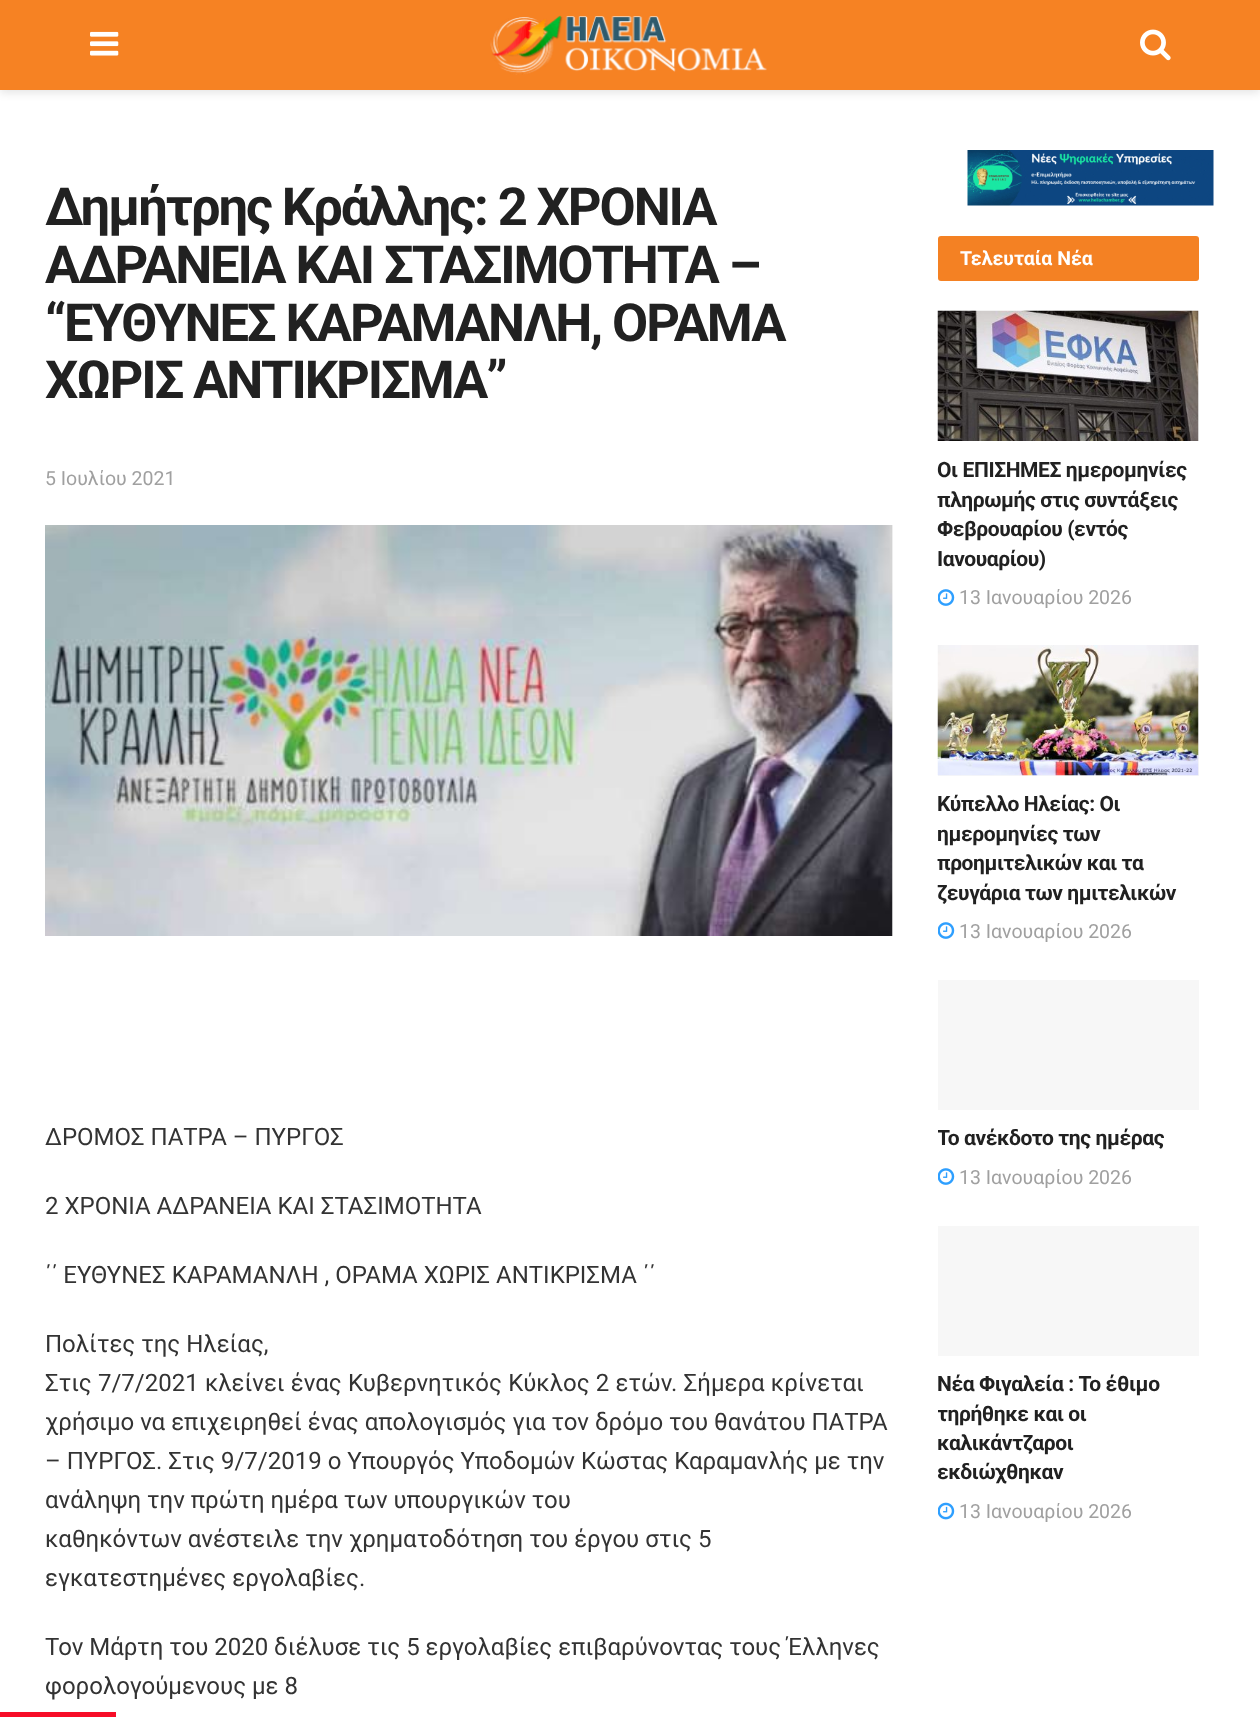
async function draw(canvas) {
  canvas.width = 1260
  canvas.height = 1717
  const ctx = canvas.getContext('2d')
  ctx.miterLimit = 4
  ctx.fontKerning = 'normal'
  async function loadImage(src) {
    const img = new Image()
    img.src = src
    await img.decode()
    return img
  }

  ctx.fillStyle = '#fff'
  ctx.fillRect(0, 0, 1260, 1717)
  ctx.fillStyle = '#0000001a'
  ctx.filter = 'blur(4.5px)'
  ctx.beginPath()
  ctx.rect(0, 3, 1260, 90)
  ctx.fill()
  ctx.filter = 'none'
  ctx.fillStyle = '#f68223'
  ctx.fillRect(0, 0, 1260, 90)
  ctx.drawImage(await loadImage('image0.png'), 90, 31, 29, 25)
  ctx.drawImage(await loadImage('image1.png'), 490, 15, 277, 60)
  ctx.drawImage(await loadImage('image2.png'), 1140, 29, 31, 32)
  ctx.letterSpacing = '-2.1px'
  ctx.font = 'bold 52.5px Roboto'
  ctx.fillStyle = '#212121'
  ctx.fillText('Δημήτρης Κράλλης: 2 ΧΡΟΝΙΑ', 45, 225)
  ctx.fillText('ΑΔΡΑΝΕΙΑ ΚΑΙ ΣΤΑΣΙΜΟΤΗΤΑ –', 45, 283)
  ctx.fillText('“ΕΥΘΥΝΕΣ ΚΑΡΑΜΑΝΛΗ, ΟΡΑΜΑ', 45, 341)
  ctx.fillText('ΧΩΡΙΣ ΑΝΤΙΚΡΙΣΜΑ”', 45, 398)
  ctx.letterSpacing = '0px'
  ctx.font = '19.5px Roboto'
  ctx.fillStyle = '#a0a0a0'
  ctx.fillText('5 Ιουλίου 2021', 45, 485)
  ctx.fillStyle = '#f7f7f7'
  ctx.fillRect(892, 525, 1, 411)
  ctx.drawImage(await loadImage('image3.png'), 45, 525, 848, 411)
  ctx.font = '24px Roboto'
  ctx.fillStyle = '#333'
  ctx.fillText('ΔΡΟΜΟΣ ΠΑΤΡΑ – ΠΥΡΓΟΣ', 45, 1145)
  ctx.fillText('2 ΧΡΟΝΙΑ ΑΔΡΑΝΕΙΑ ΚΑΙ ΣΤΑΣΙΜΟΤΗΤΑ', 45, 1214)
  ctx.fillText('΄΄ ΕΥΘΥΝΕΣ ΚΑΡΑΜΑΝΛΗ , ΟΡΑΜΑ ΧΩΡΙΣ ΑΝΤΙΚΡΙΣΜΑ ΄΄', 45, 1283)
  ctx.fillText('Πολίτες της Ηλείας,', 45, 1352)
  ctx.wordSpacing = '0.25px'
  ctx.fillText('Στις 7/7/2021 κλείνει ένας Κυβερνητικός Κύκλος 2 ετών. Σήμερα κρίνεται', 45, 1391)
  ctx.wordSpacing = '0px'
  ctx.fillText('χρήσιμο να επιχειρηθεί ένας απολογισμός για τον δρόμο του θανάτου ΠΑΤΡΑ', 45, 1430)
  ctx.fillText('– ΠΥΡΓΟΣ. Στις 9/7/2019 ο Υπουργός Υποδομών Κώστας Καραμανλής με την', 45, 1469)
  ctx.fillText('ανάληψη την πρώτη ημέρα των υπουργικών του', 45, 1508)
  ctx.fillText('καθηκόντων ανέστειλε την χρηματοδότηση του έργου στις 5', 45, 1547)
  ctx.fillText('εγκατεστημένες εργολαβίες.', 45, 1586)
  ctx.fillText('Τον Μάρτη του 2020 διέλυσε τις 5 εργολαβίες επιβαρύνοντας τους Έλληνες', 45, 1655)
  ctx.fillText('φορολογούμενους με 8', 45, 1694)
  ctx.drawImage(await loadImage('image4.png'), 967, 150, 247, 56)
  ctx.fillStyle = '#f48123'
  ctx.beginPath()
  ctx.roundRect(938, 236, 261, 45, 3)
  ctx.fill()
  ctx.font = 'bold 19.5px Roboto'
  ctx.fillStyle = '#fff'
  ctx.fillText('Τελευταία Νέα', 960, 265)
  ctx.fillStyle = '#f7f7f7'
  ctx.fillRect(1198, 311, 1, 130)
  ctx.drawImage(await loadImage('image5.png'), 937, 310, 262, 131)
  ctx.letterSpacing = '-0.4px'
  ctx.font = 'bold 21px Roboto'
  ctx.fillStyle = '#212121'
  ctx.fillText('Οι ΕΠΙΣΗΜΕΣ ημερομηνίες', 937, 477)
  ctx.fillText('πληρωμής στις συντάξεις', 937, 507)
  ctx.fillText('Φεβρουαρίου (εντός', 937, 536)
  ctx.fillText('Ιανουαρίου)', 937, 566)
  ctx.drawImage(await loadImage('image6.png'), 938, 589, 17, 17)
  ctx.letterSpacing = '0px'
  ctx.font = '19.5px Roboto'
  ctx.fillStyle = '#a0a0a0'
  ctx.fillText('13 Ιανουαρίου 2026', 959, 604)
  ctx.fillStyle = '#f7f7f7'
  ctx.fillRect(938, 645, 261, 131)
  ctx.drawImage(await loadImage('image7.png'), 937, 645, 262, 131)
  ctx.letterSpacing = '-0.4px'
  ctx.font = 'bold 21px Roboto'
  ctx.fillStyle = '#212121'
  ctx.fillText('Κύπελλο Ηλείας: Οι', 937, 811)
  ctx.fillText('ημερομηνίες των', 937, 841)
  ctx.fillText('προημιτελικών και τα', 937, 870)
  ctx.fillText('ζευγάρια των ημιτελικών', 937, 900)
  ctx.drawImage(await loadImage('image6.png'), 938, 922, 17, 17)
  ctx.letterSpacing = '0px'
  ctx.font = '19.5px Roboto'
  ctx.fillStyle = '#a0a0a0'
  ctx.fillText('13 Ιανουαρίου 2026', 959, 938)
  ctx.fillStyle = '#f7f7f7'
  ctx.fillRect(938, 980, 261, 130)
  ctx.save()
  ctx.beginPath()
  ctx.rect(938, 311, 261, 1248)
  ctx.clip()
  ctx.letterSpacing = '-0.4px'
  ctx.font = 'bold 21px Roboto'
  ctx.fillStyle = '#212121'
  ctx.fillText('Το ανέκδοτο της ημέρας', 937, 1145)
  ctx.restore()
  ctx.drawImage(await loadImage('image6.png'), 938, 1168, 17, 17)
  ctx.fillStyle = '#a0a0a0'
  ctx.fillText('13 Ιανουαρίου 2026', 959, 1184)
  ctx.fillStyle = '#f7f7f7'
  ctx.fillRect(938, 1226, 261, 130)
  ctx.letterSpacing = '-0.4px'
  ctx.font = 'bold 21px Roboto'
  ctx.fillStyle = '#212121'
  ctx.fillText('Νέα Φιγαλεία : Το έθιμο', 937, 1391)
  ctx.save()
  ctx.beginPath()
  ctx.rect(938, 311, 261, 1248)
  ctx.clip()
  ctx.fillText('τηρήθηκε και οι', 937, 1421)
  ctx.restore()
  ctx.fillText('καλικάντζαροι', 937, 1450)
  ctx.fillText('εκδιώχθηκαν', 937, 1479)
  ctx.drawImage(await loadImage('image8.png'), 938, 1502, 17, 18)
  ctx.letterSpacing = '0px'
  ctx.font = '19.5px Roboto'
  ctx.fillStyle = '#a0a0a0'
  ctx.fillText('13 Ιανουαρίου 2026', 959, 1518)
  ctx.fillStyle = '#f70d28'
  ctx.fillRect(0, 1712, 116, 5)
}

draw(document.querySelector('canvas'))
